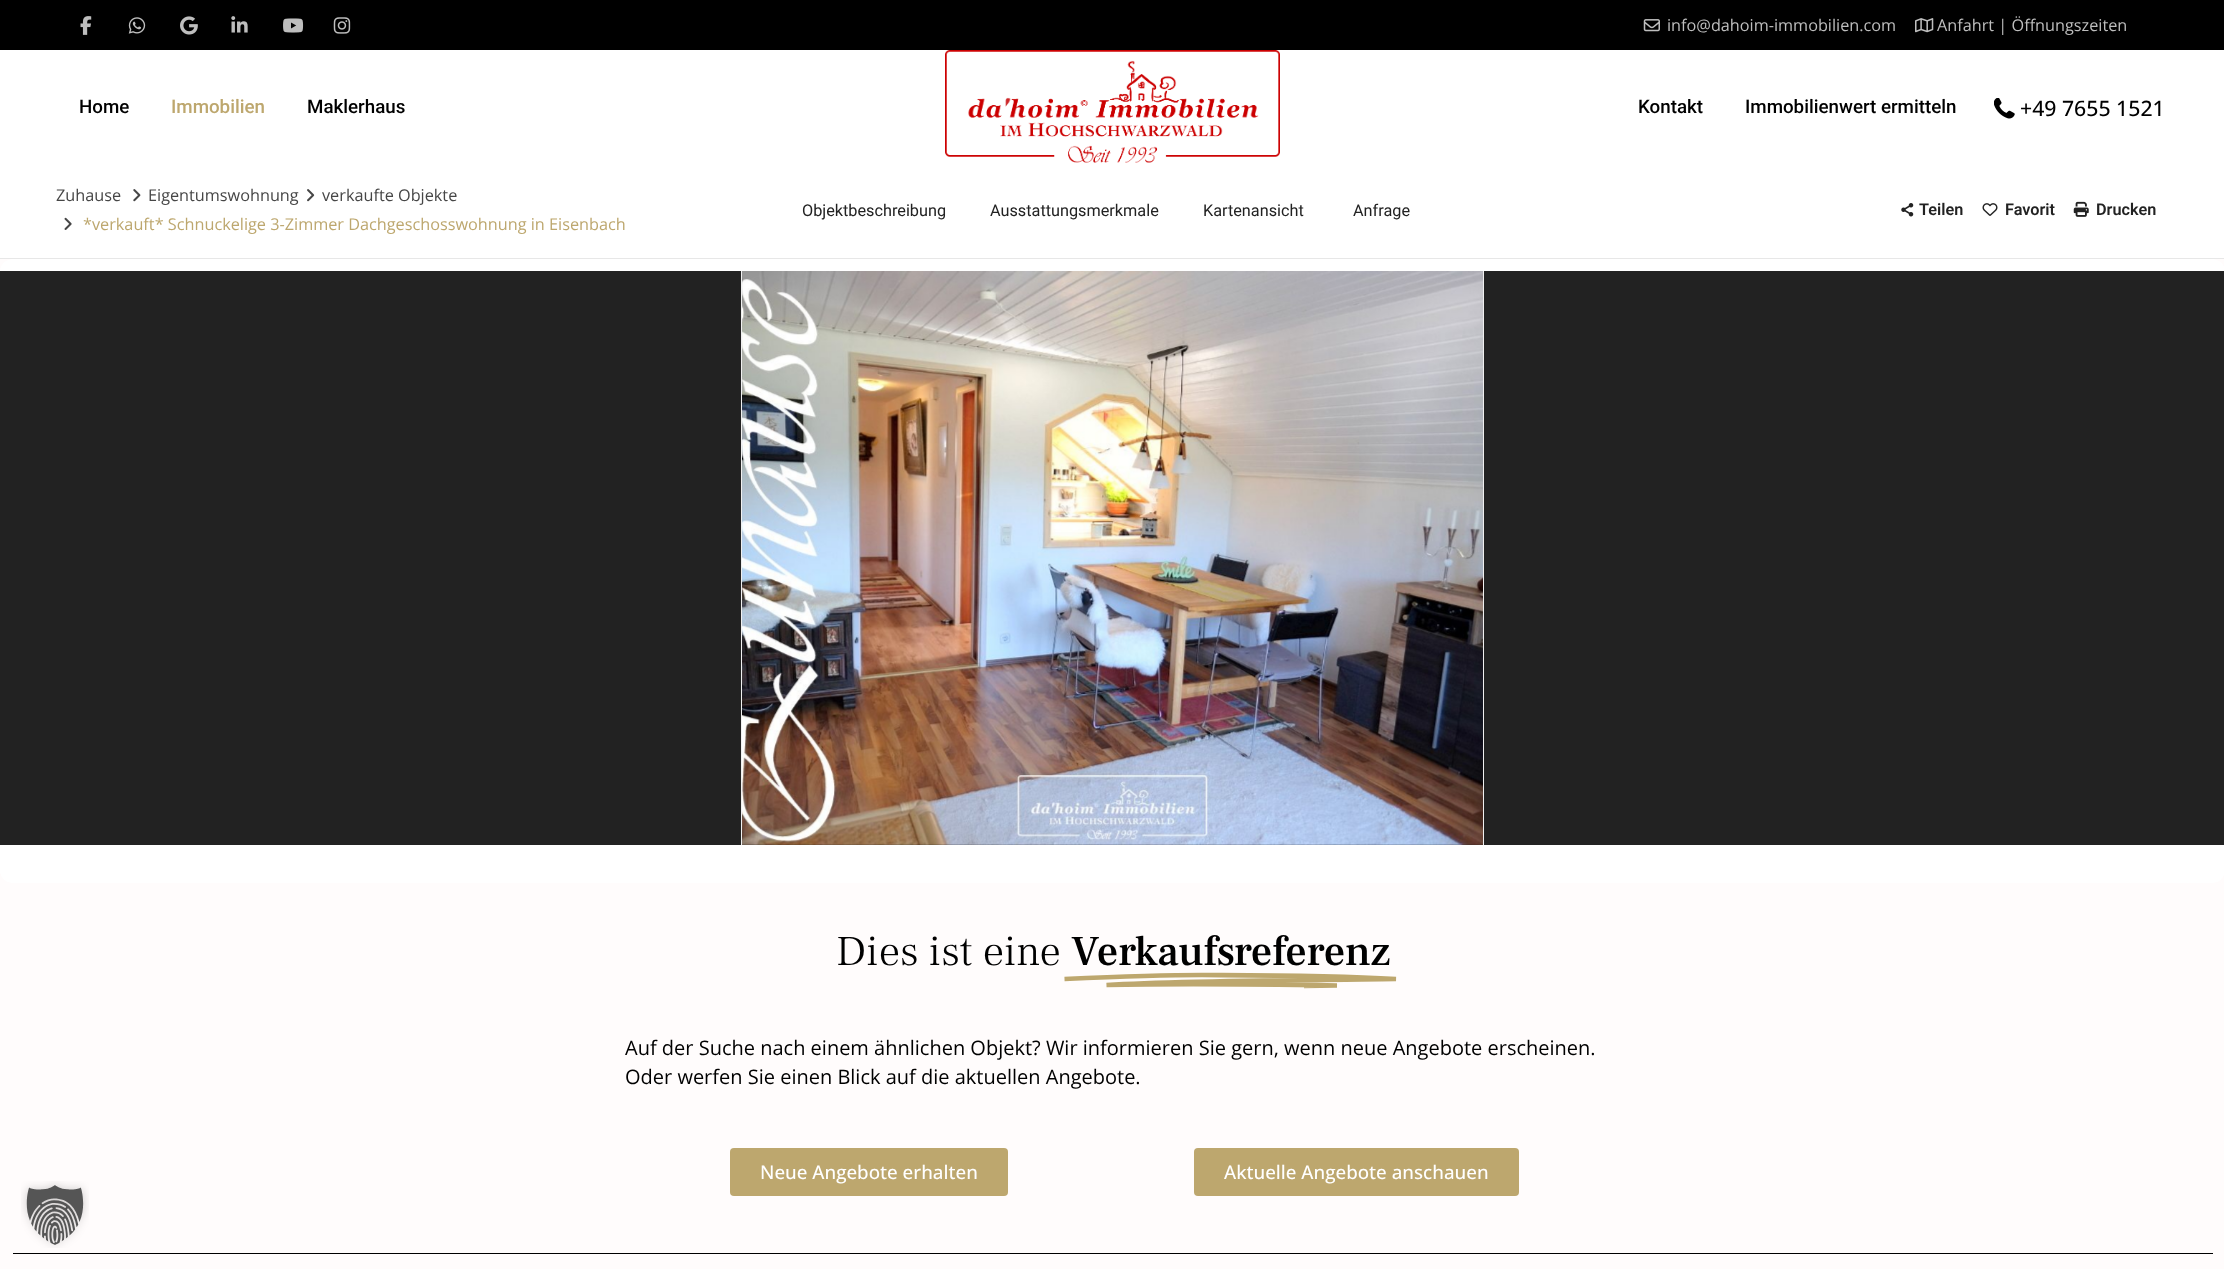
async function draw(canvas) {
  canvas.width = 2224
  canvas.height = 1269
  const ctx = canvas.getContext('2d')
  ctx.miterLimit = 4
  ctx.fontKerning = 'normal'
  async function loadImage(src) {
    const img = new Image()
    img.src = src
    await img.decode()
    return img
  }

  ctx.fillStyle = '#fffcfc'
  ctx.fillRect(0, 0, 2224, 1269)
  ctx.fillStyle = '#000'
  ctx.fillRect(0, 0, 2224, 50)
  ctx.drawImage(await loadImage('image0.png'), 80, 16, 12, 19)
  ctx.drawImage(await loadImage('image1.png'), 128, 17, 18, 17)
  ctx.drawImage(await loadImage('image2.png'), 180, 16, 18, 19)
  ctx.drawImage(await loadImage('image3.png'), 231, 16, 17, 17)
  ctx.drawImage(await loadImage('image4.png'), 283, 18, 21, 15)
  ctx.drawImage(await loadImage('image5.png'), 333, 17, 18, 17)
  ctx.drawImage(await loadImage('image6.png'), 1643, 19, 17, 13)
  ctx.font = '16.25px Open Sans'
  ctx.fillStyle = '#bebebe'
  ctx.fillText('info@dahoim-immobilien.com', 1667, 31)
  ctx.drawImage(await loadImage('image7.png'), 1915, 18, 19, 15)
  ctx.fillText('Anfahrt | Öffnungszeiten', 1937, 31)
  ctx.fillStyle = '#fff'
  ctx.fillRect(0, 50, 2224, 208)
  ctx.font = '500 18.75px Roboto'
  ctx.fillStyle = '#000'
  ctx.fillText('Home', 79, 113)
  ctx.fillStyle = '#bda76e'
  ctx.fillText('Immobilien', 171, 113)
  ctx.fillStyle = '#000'
  ctx.fillText('Maklerhaus', 307, 113)
  ctx.drawImage(await loadImage('image8.png'), 945, 50, 335, 113)
  ctx.fillText('Kontakt', 1638, 113)
  ctx.fillText('Immobilienwert ermitteln', 1745, 113)
  ctx.drawImage(await loadImage('image9.png'), 1994, 98, 21, 21)
  ctx.font = '500 21.25px Open Sans'
  ctx.fillText('+49 7655 1521', 2020, 116)
  ctx.fillStyle = '#e7e7e7'
  ctx.fillRect(0, 258, 2224, 1)
  ctx.font = '16.25px Open Sans'
  ctx.fillStyle = '#464646'
  ctx.fillText('Zuhause', 56, 201)
  ctx.drawImage(await loadImage('image10.png'), 133, 189, 8, 13)
  ctx.fillText('Eigentumswohnung', 148, 201)
  ctx.drawImage(await loadImage('image11.png'), 307, 189, 8, 13)
  ctx.fillText('verkaufte Objekte', 322, 201)
  ctx.drawImage(await loadImage('image12.png'), 64, 217, 8, 13)
  ctx.fillStyle = '#bda76e'
  ctx.fillText('*verkauft* Schnuckelige 3-Zimmer Dachgeschosswohnung in Eisenbach', 83, 230)
  ctx.font = '16.25px Roboto'
  ctx.fillStyle = '#222'
  ctx.fillText('Objektbeschreibung', 802, 216)
  ctx.fillText('Ausstattungsmerkmale', 990, 216)
  ctx.fillText('Kartenansicht', 1203, 216)
  ctx.fillText('Anfrage', 1353, 216)
  ctx.drawImage(await loadImage('image13.png'), 1901, 203, 13, 14)
  ctx.font = '600 16.25px Roboto'
  ctx.fillText('Teilen', 1919, 215)
  ctx.drawImage(await loadImage('image14.png'), 1982, 203, 16, 13)
  ctx.fillText('Favorit', 2005, 215)
  ctx.drawImage(await loadImage('image15.png'), 2073, 201, 16, 16)
  ctx.fillText('Drucken', 2096, 215)
  ctx.fillStyle = '#fff'
  ctx.beginPath()
  ctx.roundRect(0, 259, 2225, 624, 13)
  ctx.fill()
  ctx.fillStyle = '#222'
  ctx.fillRect(0, 271, 2224, 574)
  ctx.drawImage(await loadImage('image16.png'), 742, 271, 741, 574)
  ctx.fillStyle = '#f0f0f0'
  ctx.fillRect(1483, 271, 1, 574)
  ctx.fillRect(741, 271, 1, 574)
  ctx.font = '300 42.5px Frank Ruhl Libre'
  ctx.fillStyle = '#000'
  ctx.fillText('Dies ist eine', 836, 965)
  ctx.letterSpacing = '-0.6px'
  ctx.font = '500 42.5px Frank Ruhl Libre'
  ctx.fillText('Verkaufsreferenz', 1071, 965)
  ctx.beginPath()
  ctx.moveTo(1064.5, 979)
  ctx.bezierCurveTo(1098.5, 977.5, 1168, 975, 1202, 975)
  ctx.bezierCurveTo(1285.5, 975.5, 1332.5, 975.5, 1396, 979)
  ctx.bezierCurveTo(1319.5, 980, 1182.5, 980.5, 1106.5, 985)
  ctx.bezierCurveTo(1163, 983.5, 1281, 984.5, 1337, 985.5)
  ctx.lineTo(1304, 986)
  ctx.strokeStyle = '#bda76e'
  ctx.lineWidth = 4.7
  ctx.stroke()
  ctx.letterSpacing = '0px'
  ctx.font = '20px Open Sans'
  ctx.fillText('Auf der Suche nach einem ähnlichen Objekt? Wir informieren Sie gern, wenn neue Angebote erscheinen.', 625, 1055)
  ctx.fillText('Oder werfen Sie einen Blick auf die aktuellen Angebote.', 625, 1084)
  ctx.fillStyle = '#bda76e'
  ctx.beginPath()
  ctx.roundRect(730, 1148, 278, 48, 4)
  ctx.fill()
  ctx.font = '500 18.75px Open Sans'
  ctx.fillStyle = '#fff'
  ctx.fillText('Neue Angebote erhalten', 760, 1179)
  ctx.fillStyle = '#bda76e'
  ctx.beginPath()
  ctx.roundRect(1194, 1148, 325, 48, 4)
  ctx.fill()
  ctx.fillStyle = '#fff'
  ctx.fillText('Aktuelle Angebote anschauen', 1224, 1179)
  ctx.fillStyle = '#000'
  ctx.fillRect(13, 1253, 2200, 1)
  ctx.drawImage(await loadImage('image17.png'), 21, 1181, 68, 67)
}

draw(document.querySelector('canvas'))
